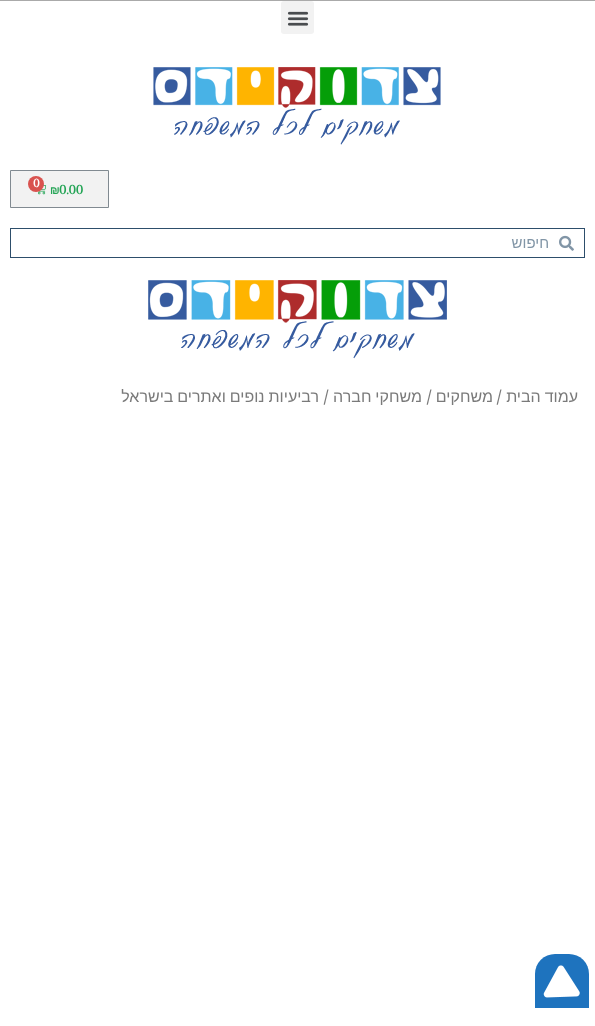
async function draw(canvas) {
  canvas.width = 595
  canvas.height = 1026
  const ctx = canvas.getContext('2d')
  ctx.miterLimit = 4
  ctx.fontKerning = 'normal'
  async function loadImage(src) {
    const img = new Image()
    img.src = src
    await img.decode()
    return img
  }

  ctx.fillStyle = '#fff'
  ctx.fillRect(0, 0, 595, 1026)
  ctx.fillStyle = '#aaa'
  ctx.fillRect(0, 0, 595, 1)
  ctx.fillStyle = '#f2f2f2'
  ctx.beginPath()
  ctx.roundRect(281, 1, 33, 33, 3)
  ctx.fill()
  ctx.drawImage(await loadImage('image0.png'), 287, 11, 22, 15)
  ctx.drawImage(await loadImage('image1.png'), 153, 67, 288, 78)
  ctx.beginPath()
  ctx.rect(10.5, 170.5, 98, 37)
  ctx.fill()
  ctx.strokeStyle = '#818a91'
  ctx.stroke()
  ctx.drawImage(await loadImage('image2.png'), 38, 185, 9, 10)
  ctx.fillStyle = '#d9534f'
  ctx.beginPath()
  ctx.arc(36, 184, 8, 0, 2 * Math.PI)
  ctx.fill()
  ctx.font = 'bold 10px Adamina'
  ctx.fillStyle = '#fff'
  ctx.fillText('0', 33, 187)
  ctx.font = 'bold 11px Adamina'
  ctx.fillStyle = '#23a455'
  ctx.fillText('0.00', 59, 194)
  ctx.font = 'bold 11px Liberation Sans'
  ctx.fillText('₪', 50, 194)
  ctx.strokeStyle = '#2d4e6b'
  ctx.strokeRect(10.5, 228.5, 574, 29)
  ctx.drawImage(await loadImage('image3.png'), 559, 235, 15, 16)
  ctx.direction = 'rtl'
  ctx.font = '15px Liberation Sans'
  ctx.fillStyle = '#8195a6'
  ctx.fillText('חיפוש', 549, 248)
  ctx.fillStyle = '#1e73be'
  ctx.beginPath()
  ctx.roundRect(535, 954, 54, 54, [20, 20, 0, 0])
  ctx.fill()
  ctx.drawImage(await loadImage('image4.png'), 543, 965, 37, 33)
  ctx.drawImage(await loadImage('image5.png'), 148, 280, 299, 79)
  ctx.wordSpacing = '-0.5px'
  ctx.font = '16px Liberation Sans'
  ctx.fillStyle = '#7a7a7a'
  ctx.fillText('עמוד הבית', 578, 402)
  ctx.wordSpacing = '0px'
  ctx.direction = 'ltr'
  ctx.font = '300 16px Merriweather'
  ctx.fillText('/', 496, 402)
  ctx.direction = 'rtl'
  ctx.font = '16px Liberation Sans'
  ctx.fillText('משחקים', 493, 402)
  ctx.direction = 'ltr'
  ctx.font = '300 16px Merriweather'
  ctx.fillText('/', 426, 402)
  ctx.wordSpacing = '-0.5px'
  ctx.direction = 'rtl'
  ctx.font = '16px Liberation Sans'
  ctx.fillText('משחקי חברה', 422, 402)
  ctx.wordSpacing = '0px'
  ctx.font = '300 16px Merriweather'
  ctx.fillText('/', 329, 402)
  ctx.wordSpacing = '-0.5px'
  ctx.font = '16px Liberation Sans'
  ctx.fillText('רביעיות נופים ואתרים בישראל', 319, 402)
}

draw(document.querySelector('canvas'))
